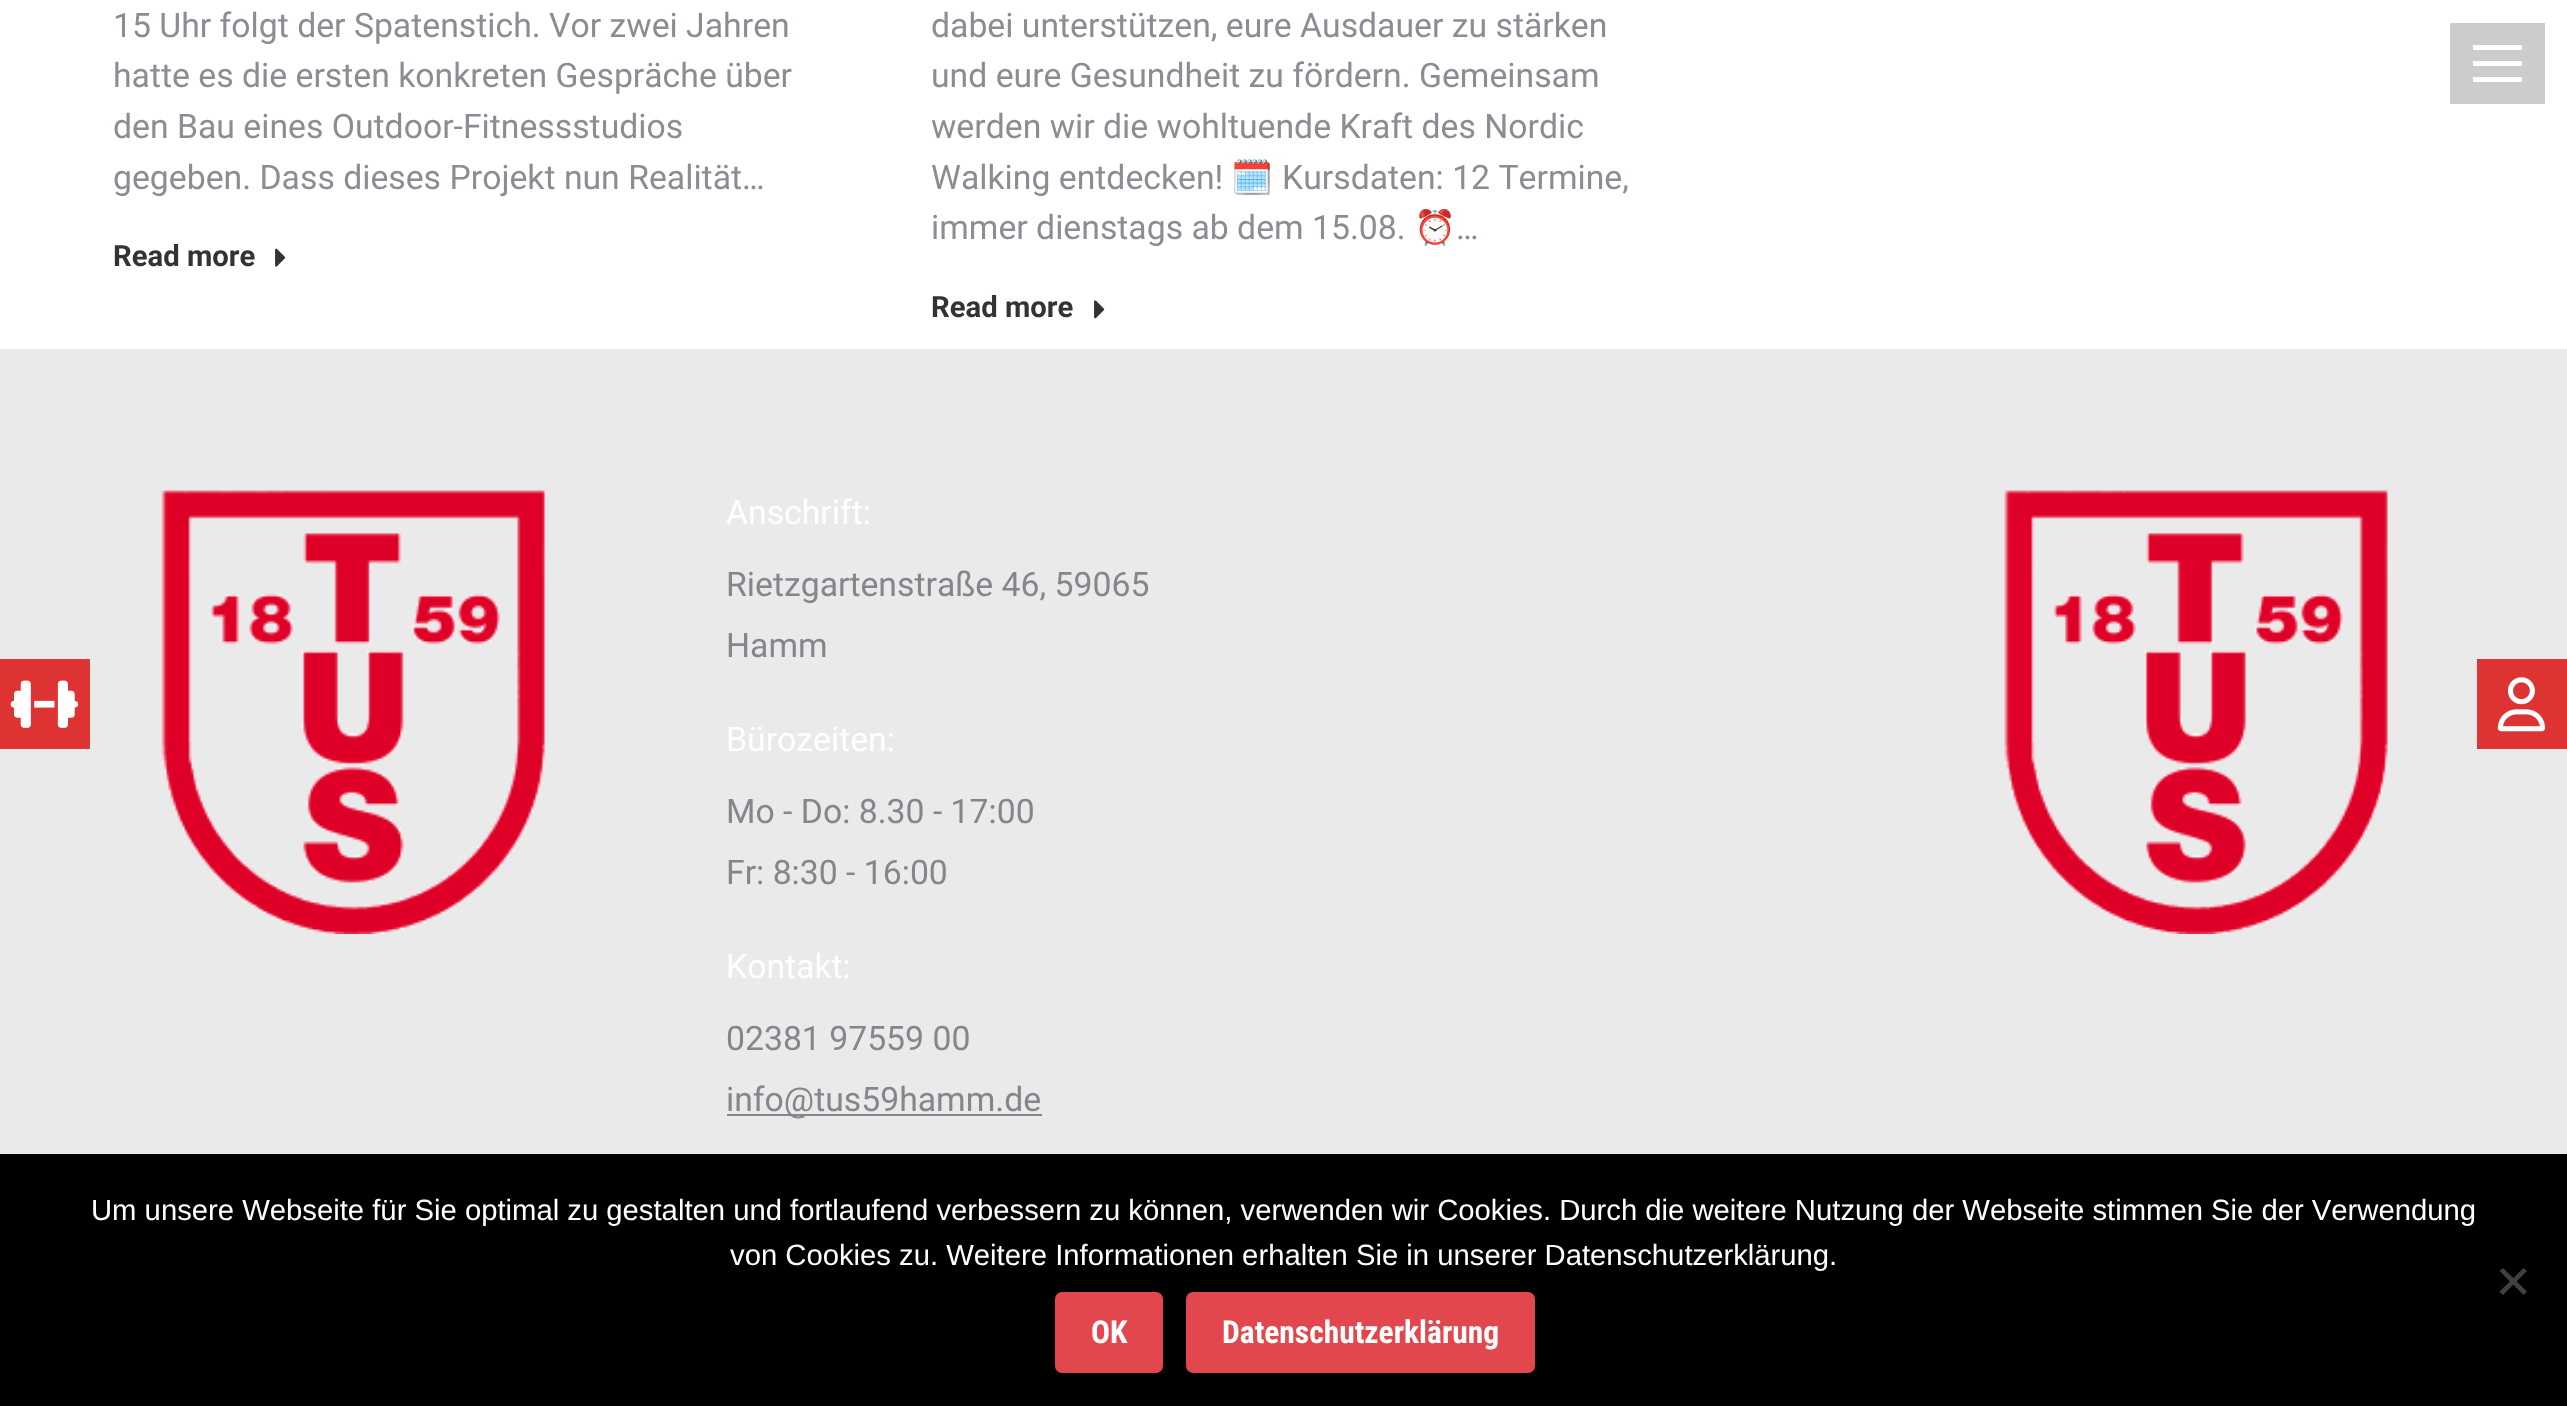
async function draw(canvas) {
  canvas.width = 2567
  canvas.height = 1406
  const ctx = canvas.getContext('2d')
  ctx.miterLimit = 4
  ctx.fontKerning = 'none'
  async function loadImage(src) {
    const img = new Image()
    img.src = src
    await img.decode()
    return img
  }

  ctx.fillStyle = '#fff'
  ctx.fillRect(0, 0, 2567, 1406)
  ctx.fillStyle = '#eaeaea'
  ctx.fillRect(0, 349, 2567, 805)
  ctx.fillStyle = '#d33'
  ctx.fillRect(0, 659, 90, 90)
  ctx.drawImage(await loadImage('image0.png'), 10, 680, 69, 48)
  ctx.font = '33.75px Roboto'
  ctx.fillStyle = '#8b8d94'
  ctx.fillText('15 Uhr folgt der Spatenstich. Vor zwei Jahren', 113, 37)
  ctx.fillText('hatte es die ersten konkreten Gespräche über', 113, 87)
  ctx.fillText('den Bau eines Outdoor-Fitnessstudios', 113, 138)
  ctx.fillText('gegeben. Dass dieses Projekt nun Realität…', 113, 189)
  ctx.font = 'bold 29.25px Roboto'
  ctx.fillStyle = '#333'
  ctx.fillText('Read more', 113, 266)
  ctx.drawImage(await loadImage('image1.png'), 275, 248, 11, 19)
  ctx.font = '33.75px Roboto'
  ctx.fillStyle = '#8b8d94'
  ctx.fillText('dabei unterstützen, eure Ausdauer zu stärken', 931, 37)
  ctx.fillText('und eure Gesundheit zu fördern. Gemeinsam', 931, 87)
  ctx.fillText('werden wir die wohltuende Kraft des Nordic', 931, 138)
  ctx.fillText('Walking entdecken!', 931, 189)
  ctx.font = '33.75px Noto Color Emoji'
  ctx.fillText('🗓️', 1231, 189)
  ctx.font = '33.75px Roboto'
  ctx.fillText('Kursdaten: 12 Termine,', 1282, 189)
  ctx.fillText('immer dienstags ab dem 15.08.', 931, 239)
  ctx.font = '33.75px Noto Color Emoji'
  ctx.fillText('⏰', 1414, 239)
  ctx.font = '33.75px Roboto'
  ctx.fillText('…', 1456, 239)
  ctx.font = 'bold 29.25px Roboto'
  ctx.fillStyle = '#333'
  ctx.fillText('Read more', 931, 317)
  ctx.drawImage(await loadImage('image2.png'), 1094, 300, 11, 19)
  ctx.fillStyle = '#ccc'
  ctx.fillRect(2450, 23, 95, 81)
  ctx.fillStyle = '#fff'
  ctx.fillRect(2473, 45, 49, 5)
  ctx.fillRect(2473, 61, 49, 5)
  ctx.fillRect(2473, 77, 49, 5)
  ctx.drawImage(await loadImage('image3.png'), 161, 490, 385, 444)
  ctx.font = '33.75px Roboto'
  ctx.fillText('Anschrift:', 726, 524)
  ctx.fillStyle = '#85868c'
  ctx.fillText('Rietzgartenstraße 46, 59065', 726, 596)
  ctx.fillText('Hamm', 726, 657)
  ctx.fillStyle = '#fff'
  ctx.fillText('Bürozeiten:', 726, 751)
  ctx.fillStyle = '#85868c'
  ctx.fillText('Mo - Do: 8.30 - 17:00', 726, 823)
  ctx.fillText('Fr: 8:30 - 16:00', 726, 884)
  ctx.fillStyle = '#fff'
  ctx.fillText('Kontakt:', 726, 978)
  ctx.fillStyle = '#85868c'
  ctx.fillText('02381 97559 00', 726, 1050)
  ctx.fillRect(727, 1114, 315, 2)
  ctx.fillText('info@tus59hamm.de', 726, 1111)
  ctx.drawImage(await loadImage('image4.png'), 2004, 490, 384, 444)
  ctx.fillStyle = '#d33'
  ctx.fillRect(2477, 659, 90, 90)
  ctx.drawImage(await loadImage('image5.png'), 2497, 677, 49, 55)
  ctx.fillStyle = '#000'
  ctx.fillRect(0, 1154, 2567, 252)
  ctx.font = '29.25px Liberation Sans'
  ctx.fillStyle = '#fff'
  ctx.fillText('Um unsere Webseite für Sie optimal zu gestalten und fortlaufend verbessern zu können, verwenden wir Cookies. Durch die weitere Nutzung der Webseite stimmen Sie der Verwendung', 91, 1220)
  ctx.fillText('von Cookies zu. Weitere Informationen erhalten Sie in unserer Datenschutzerklärung.', 730, 1265)
  ctx.fillStyle = '#404040'
  ctx.beginPath()
  ctx.moveTo(2523.5, 1268)
  ctx.lineTo(2527, 1271)
  ctx.lineTo(2503, 1295)
  ctx.lineTo(2499.5, 1291.5)
  ctx.closePath()
  ctx.fill()
  ctx.beginPath()
  ctx.moveTo(2499.5, 1271)
  ctx.lineTo(2503, 1268)
  ctx.lineTo(2527, 1291.5)
  ctx.lineTo(2523.5, 1295)
  ctx.closePath()
  ctx.fill()
  ctx.fillStyle = '#e1474d'
  ctx.beginPath()
  ctx.roundRect(1055, 1292, 108, 81, 7)
  ctx.fill()
  ctx.font = 'bold 31.5px Roboto Condensed'
  ctx.fillStyle = '#fff'
  ctx.fillText('OK', 1091, 1343)
  ctx.fillStyle = '#e1474d'
  ctx.beginPath()
  ctx.roundRect(1186, 1292, 349, 81, 7)
  ctx.fill()
  ctx.fillStyle = '#fff'
  ctx.fillText('Datenschutzerklärung', 1222, 1343)
}

draw(document.querySelector('canvas'))
